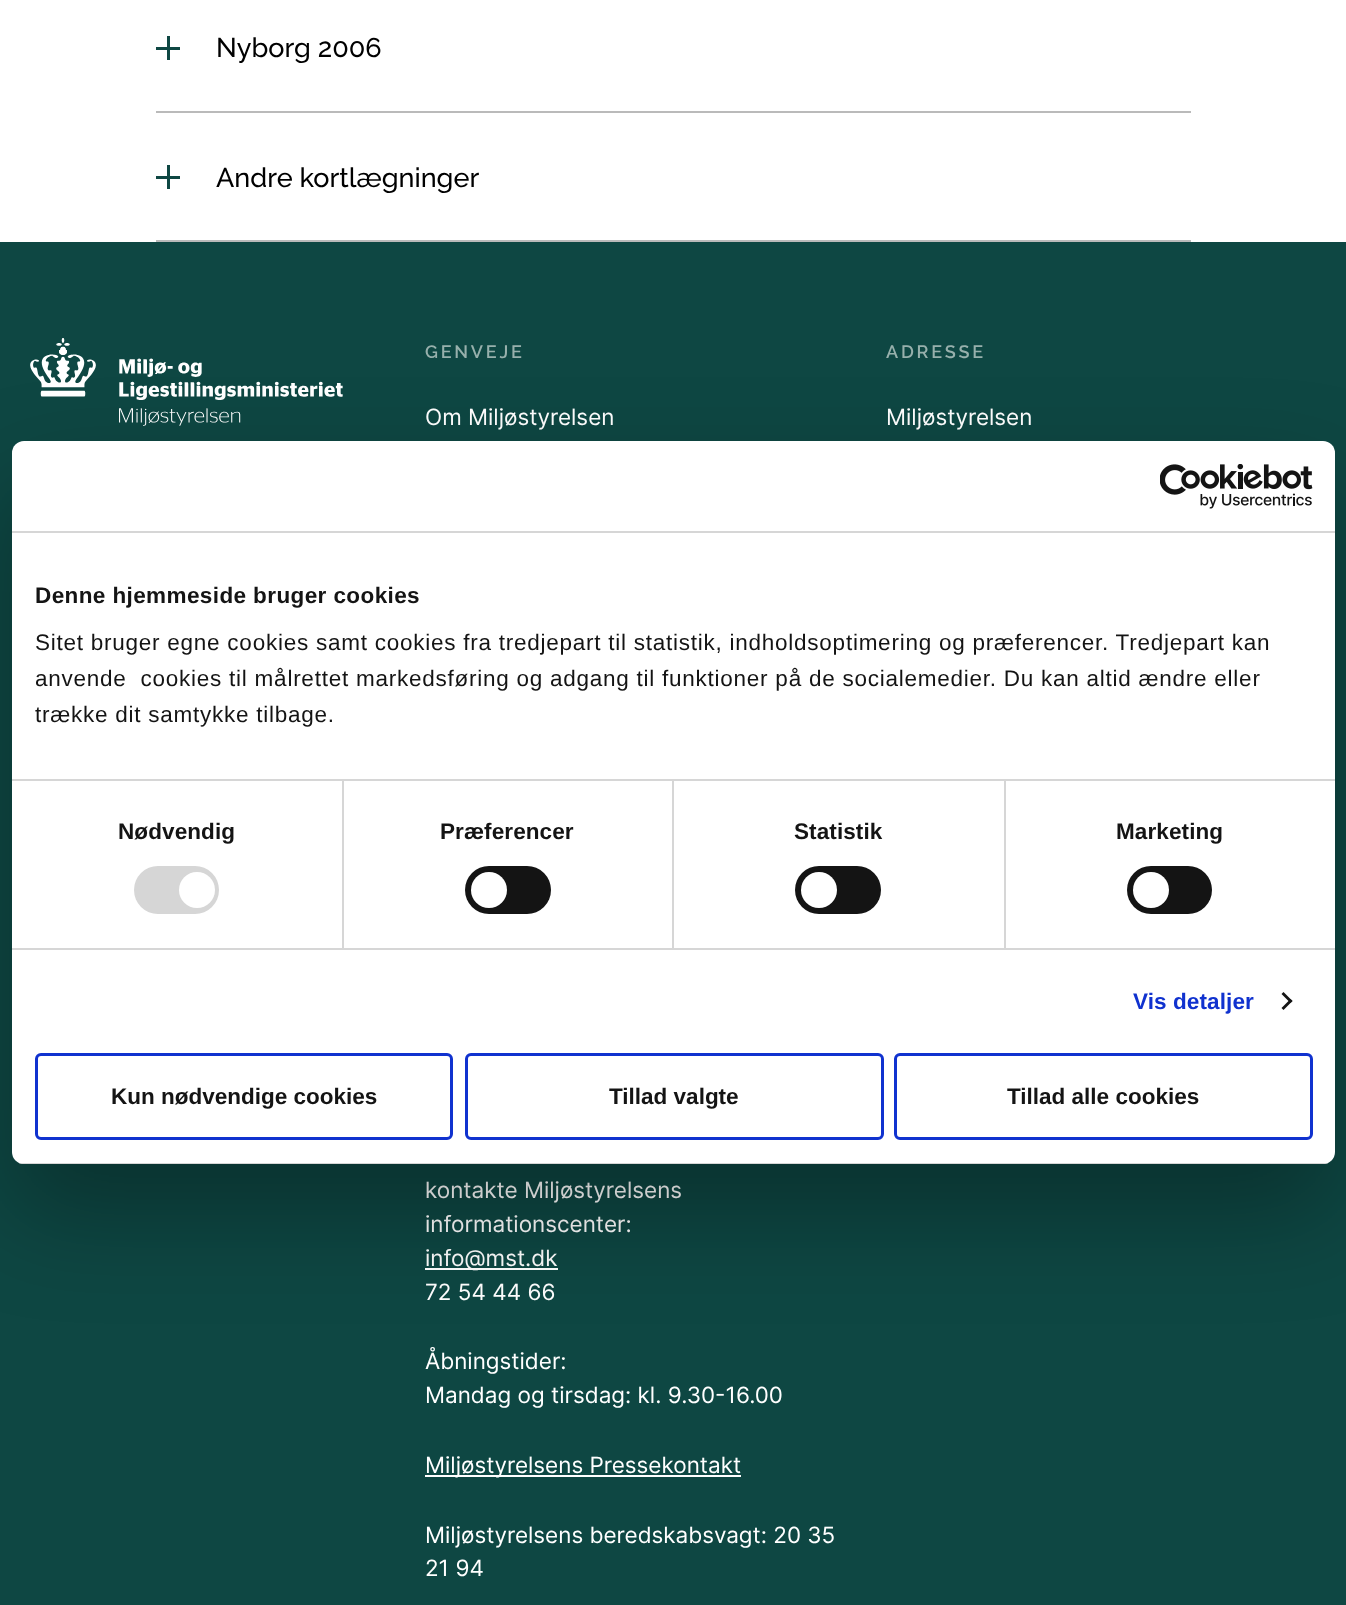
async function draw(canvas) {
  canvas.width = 1346
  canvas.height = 1605
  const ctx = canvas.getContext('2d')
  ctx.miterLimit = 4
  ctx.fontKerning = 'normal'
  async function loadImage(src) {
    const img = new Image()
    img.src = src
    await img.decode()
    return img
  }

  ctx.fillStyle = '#fff'
  ctx.fillRect(0, 0, 1346, 1605)
  ctx.fillStyle = '#0e4743'
  ctx.fillRect(156, 47, 24, 3)
  ctx.fillRect(167, 36, 3, 24)
  ctx.font = 'italic 500 27px Raleway'
  ctx.fillStyle = '#000'
  ctx.fillText('Nyborg 2006', 216, 57)
  ctx.fillStyle = '#bababa'
  ctx.fillRect(156, 111, 1035, 2)
  ctx.fillRect(156, 240, 1035, 2)
  ctx.fillStyle = '#0e4743'
  ctx.fillRect(156, 176, 24, 3)
  ctx.fillRect(167, 165, 3, 24)
  ctx.fillStyle = '#000'
  ctx.fillText('Andre kortlægninger', 216, 187)
  ctx.fillStyle = '#0e4743'
  ctx.fillRect(0, 242, 1346, 1363)
  ctx.drawImage(await loadImage('image0.png'), 30, 338, 313, 88)
  ctx.letterSpacing = '2.75px'
  ctx.font = 'italic 600 18px Raleway'
  ctx.fillStyle = '#97b0ac'
  ctx.fillText('GENVEJE', 425, 358)
  ctx.letterSpacing = '0px'
  ctx.font = 'italic 22.5px Inter'
  ctx.fillStyle = '#fff'
  ctx.fillText('Om Miljøstyrelsen', 425, 425)
  ctx.letterSpacing = '2.75px'
  ctx.font = 'italic 600 18px Raleway'
  ctx.fillStyle = '#97b0ac'
  ctx.fillText('ADRESSE', 886, 358)
  ctx.letterSpacing = '0px'
  ctx.font = 'italic 22.5px Inter'
  ctx.fillStyle = '#fff'
  ctx.fillText('Miljøstyrelsen', 886, 425)
  ctx.fillText('kontakte Miljøstyrelsens', 425, 1198)
  ctx.fillText('informationscenter:', 425, 1232)
  ctx.fillRect(425, 1268, 133, 2)
  ctx.fillText('info@mst.dk', 425, 1266)
  ctx.fillText('72 54 44 66', 425, 1300)
  ctx.fillText('Åbningstider:', 425, 1369)
  ctx.fillText('Mandag og tirsdag: kl. 9.30-16.00', 425, 1403)
  ctx.fillRect(425, 1475, 316, 2)
  ctx.fillText('Miljøstyrelsens Pressekontakt', 425, 1473)
  ctx.fillText('Miljøstyrelsens beredskabsvagt: 20 35', 425, 1543)
  ctx.fillText('21 94', 425, 1576)
  ctx.fillStyle = '#0000004d'
  ctx.filter = 'blur(51px)'
  ctx.beginPath()
  ctx.roundRect(12, 489, 1323, 723, 12)
  ctx.fill()
  ctx.filter = 'none'
  ctx.fillStyle = '#fff'
  ctx.beginPath()
  ctx.roundRect(12, 441, 1323, 723, 12)
  ctx.fill()
  ctx.fillStyle = '#d6d6d6'
  ctx.fillRect(12, 531, 1323, 2)
  ctx.drawImage(await loadImage('image1.png'), 1160, 464, 153, 45)
  ctx.fillRect(342, 780, 2, 168)
  ctx.fillRect(672, 780, 2, 168)
  ctx.fillRect(1004, 780, 2, 168)
  ctx.fillRect(12, 779, 1323, 2)
  ctx.letterSpacing = '0.4px'
  ctx.font = 'bold 22.5px Liberation Sans'
  ctx.fillStyle = '#141414'
  ctx.fillText('Denne hjemmeside bruger cookies', 35, 603)
  ctx.letterSpacing = '0.75px'
  ctx.font = '22.5px Liberation Sans'
  ctx.fillText('Sitet bruger egne cookies samt cookies fra tredjepart til statistik, indholdsoptimering og præferencer. Tredjepart kan', 35, 650)
  ctx.fillText('anvende  cookies til målrettet markedsføring og adgang til funktioner på de socialemedier. Du kan altid ændre eller', 35, 686)
  ctx.fillText('trække dit samtykke tilbage.', 35, 722)
  ctx.fillStyle = '#d6d6d6'
  ctx.fillRect(12, 948, 1323, 2)
  ctx.letterSpacing = '0.1px'
  ctx.font = 'bold 22.5px Liberation Sans'
  ctx.fillStyle = '#141414'
  ctx.fillText('Nødvendig', 118, 839)
  ctx.fillStyle = '#d6d6d6'
  ctx.beginPath()
  ctx.roundRect(134, 866, 85, 48, 24)
  ctx.fill()
  ctx.fillStyle = '#fff'
  ctx.beginPath()
  ctx.arc(197, 890, 18, 0, 2 * Math.PI)
  ctx.fill()
  ctx.fillStyle = '#141414'
  ctx.fillText('Præferencer', 440, 839)
  ctx.beginPath()
  ctx.roundRect(465, 866, 86, 48, 24)
  ctx.fill()
  ctx.fillStyle = '#fff'
  ctx.beginPath()
  ctx.arc(489, 890, 18, 0, 2 * Math.PI)
  ctx.fill()
  ctx.fillStyle = '#141414'
  ctx.fillText('Statistik', 794, 839)
  ctx.beginPath()
  ctx.roundRect(795, 866, 86, 48, 24)
  ctx.fill()
  ctx.fillStyle = '#fff'
  ctx.beginPath()
  ctx.arc(819, 890, 18, 0, 2 * Math.PI)
  ctx.fill()
  ctx.fillStyle = '#141414'
  ctx.fillText('Marketing', 1116, 839)
  ctx.beginPath()
  ctx.roundRect(1127, 866, 85, 48, 24)
  ctx.fill()
  ctx.fillStyle = '#fff'
  ctx.beginPath()
  ctx.arc(1151, 890, 18, 0, 2 * Math.PI)
  ctx.fill()
  ctx.fillStyle = '#1032cf'
  ctx.fillText('Vis detaljer', 1133, 1009)
  ctx.fillStyle = '#141414'
  ctx.beginPath()
  ctx.moveTo(1283.5, 992)
  ctx.lineTo(1292.5, 1001)
  ctx.lineTo(1290.5, 1003)
  ctx.lineTo(1281.5, 994)
  ctx.closePath()
  ctx.fill()
  ctx.beginPath()
  ctx.moveTo(1290.5, 999)
  ctx.lineTo(1292.5, 1001)
  ctx.lineTo(1283.5, 1010)
  ctx.lineTo(1281.5, 1008)
  ctx.closePath()
  ctx.fill()
  ctx.save()
  ctx.beginPath()
  ctx.roundRect(12, 441, 1323, 723, 12)
  ctx.clip()
  ctx.fillStyle = '#d6d6d6'
  ctx.fillRect(12, 1163, 1323, 1)
  ctx.restore()
  ctx.beginPath()
  ctx.roundRect(36.5, 1054.5, 415, 84, 4.5)
  ctx.strokeStyle = '#1032cf'
  ctx.lineWidth = 3
  ctx.stroke()
  ctx.letterSpacing = '0px'
  ctx.fillText('Kun nødvendige cookies', 111, 1104)
  ctx.beginPath()
  ctx.roundRect(466.5, 1054.5, 416, 84, 4.5)
  ctx.stroke()
  ctx.fillText('Tillad valgte', 609, 1104)
  ctx.beginPath()
  ctx.roundRect(895.5, 1054.5, 416, 84, 4.5)
  ctx.stroke()
  ctx.fillText('Tillad alle cookies', 1007, 1104)
}

draw(document.querySelector('canvas'))
